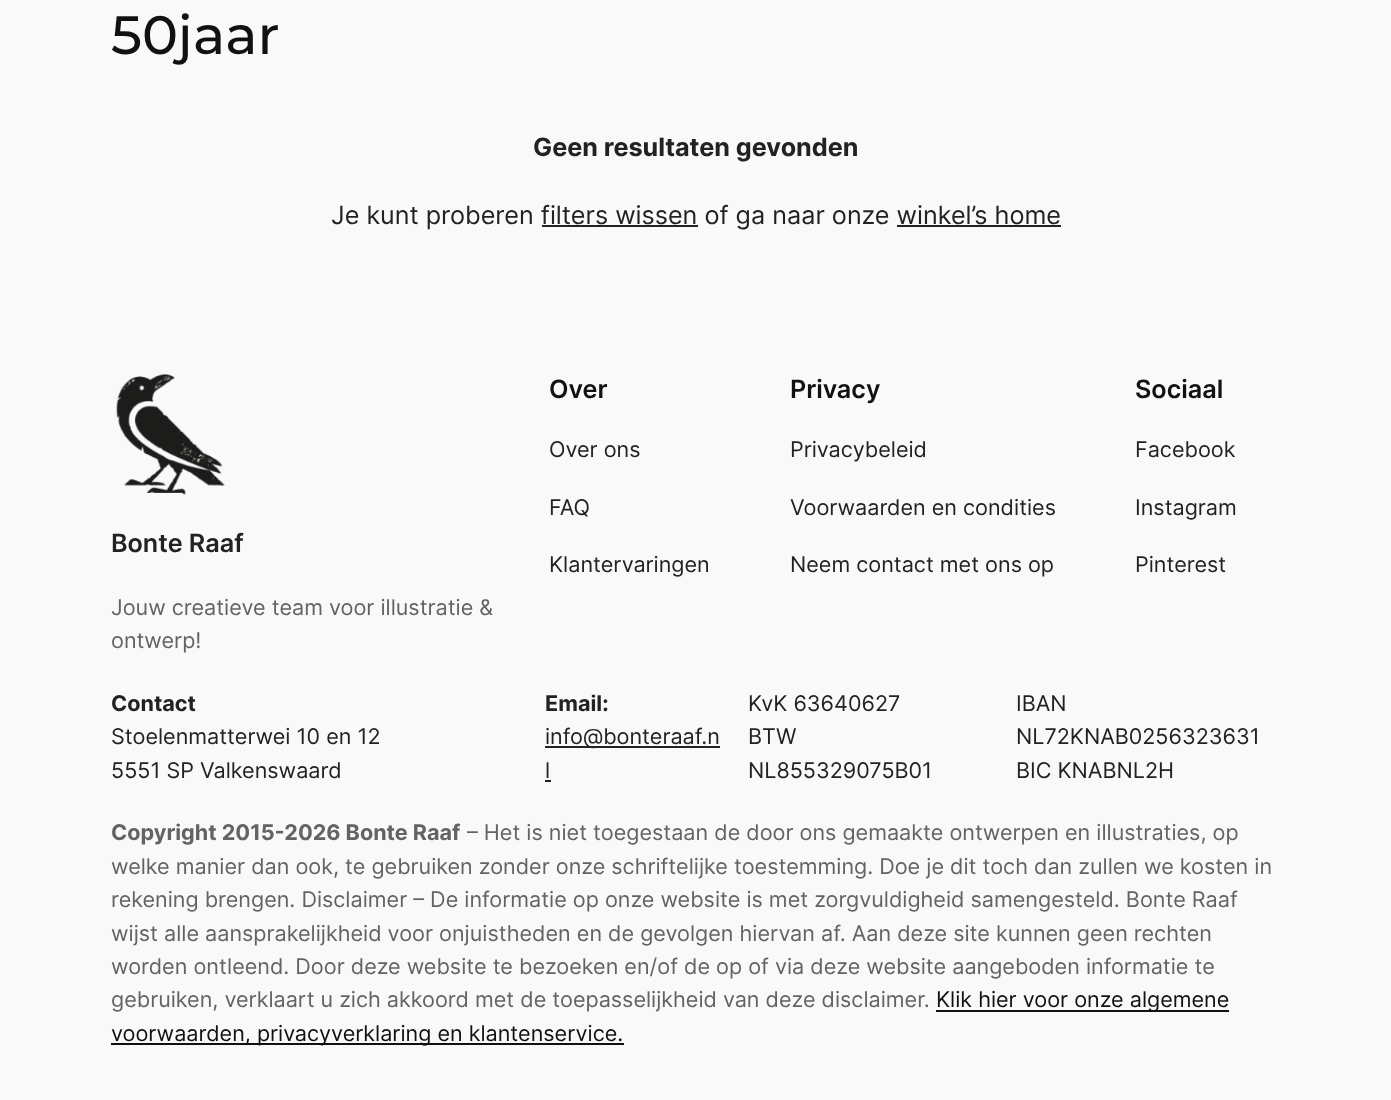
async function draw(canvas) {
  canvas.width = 1391
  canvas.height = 1100
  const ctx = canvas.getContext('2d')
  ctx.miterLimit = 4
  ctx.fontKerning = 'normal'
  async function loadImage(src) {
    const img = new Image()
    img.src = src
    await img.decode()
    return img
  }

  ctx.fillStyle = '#f9f9f9'
  ctx.fillRect(0, 0, 1391, 1100)
  ctx.font = '500 54px Montserrat'
  ctx.fillStyle = '#111'
  ctx.fillText('50jaar', 111, 54)
  ctx.font = 'bold 25.2px Inter'
  ctx.fillStyle = '#222'
  ctx.fillText('Geen resultaten gevonden', 533, 156)
  ctx.font = '25.2px Inter'
  ctx.fillText('Je kunt proberen filters wissen of ga naar onze winkel’s home', 331, 224)
  ctx.fillRect(542, 225, 156, 2)
  ctx.fillRect(897, 225, 164, 2)
  ctx.font = '600 25.2px Inter'
  ctx.fillStyle = '#111'
  ctx.fillText('Over', 549, 398)
  ctx.font = '21.6px Inter'
  ctx.fillStyle = '#222'
  ctx.fillText('Over ons', 549, 457)
  ctx.fillText('FAQ', 549, 515)
  ctx.fillText('Klantervaringen', 549, 572)
  ctx.font = '600 25.2px Inter'
  ctx.fillStyle = '#111'
  ctx.fillText('Privacy', 790, 398)
  ctx.font = '21.6px Inter'
  ctx.fillStyle = '#222'
  ctx.fillText('Privacybeleid', 790, 457)
  ctx.fillText('Voorwaarden en condities', 790, 515)
  ctx.fillText('Neem contact met ons op', 790, 572)
  ctx.font = '600 25.2px Inter'
  ctx.fillStyle = '#111'
  ctx.fillText('Sociaal', 1135, 398)
  ctx.font = '21.6px Inter'
  ctx.fillStyle = '#222'
  ctx.fillText('Facebook', 1135, 457)
  ctx.fillText('Instagram', 1135, 515)
  ctx.fillText('Pinterest', 1135, 572)
  ctx.drawImage(await loadImage('image0.png'), 116, 374, 109, 121)
  ctx.font = '600 25.2px Inter'
  ctx.fillText('Bonte Raaf', 111, 552)
  ctx.font = '21.6px Inter'
  ctx.fillStyle = '#636363'
  ctx.fillText('Jouw creatieve team voor illustratie &', 111, 615)
  ctx.fillText('ontwerp!', 111, 648)
  ctx.font = 'bold 21.6px Inter'
  ctx.fillStyle = '#222'
  ctx.fillText('Contact', 111, 711)
  ctx.font = '21.6px Inter'
  ctx.fillText('Stoelenmatterwei 10 en 12', 111, 744)
  ctx.fillText('5551 SP Valkenswaard', 111, 778)
  ctx.font = 'bold 21.6px Inter'
  ctx.fillText('Email:', 545, 711)
  ctx.fillRect(545, 746, 175, 2)
  ctx.font = '21.6px Inter'
  ctx.fillText('info@bonteraaf.n', 545, 744)
  ctx.fillText('l', 545, 778)
  ctx.fillRect(545, 780, 6, 2)
  ctx.fillText('KvK 63640627', 748, 711)
  ctx.fillText('BTW', 748, 744)
  ctx.fillText('NL855329075B01', 748, 778)
  ctx.fillText('IBAN', 1016, 711)
  ctx.fillText('NL72KNAB0256323631', 1016, 744)
  ctx.fillText('BIC KNABNL2H', 1016, 778)
  ctx.font = 'bold 21.6px Inter'
  ctx.fillStyle = '#636363'
  ctx.fillText('Copyright 2015-2026 Bonte Raaf', 111, 840)
  ctx.font = '21.6px Inter'
  ctx.fillText('– Het is niet toegestaan de door ons gemaakte ontwerpen en illustraties, op', 467, 840)
  ctx.fillText('welke manier dan ook, te gebruiken zonder onze schriftelijke toestemming. Doe je dit toch dan zullen we kosten in', 111, 874)
  ctx.fillText('rekening brengen. Disclaimer – De informatie op onze website is met zorgvuldigheid samengesteld. Bonte Raaf', 111, 907)
  ctx.fillText('wijst alle aansprakelijkheid voor onjuistheden en de gevolgen hiervan af. Aan deze site kunnen geen rechten', 111, 941)
  ctx.fillText('worden ontleend. Door deze website te bezoeken en/of de op of via deze website aangeboden informatie te', 111, 974)
  ctx.fillText('gebruiken, verklaart u zich akkoord met de toepasselijkheid van deze disclaimer.', 111, 1007)
  ctx.fillStyle = '#111'
  ctx.fillRect(936, 1010, 293, 2)
  ctx.fillText('Klik hier voor onze algemene', 936, 1007)
  ctx.fillRect(111, 1043, 513, 2)
  ctx.fillText('voorwaarden, privacyverklaring en klantenservice.', 111, 1041)
}

draw(document.querySelector('canvas'))
